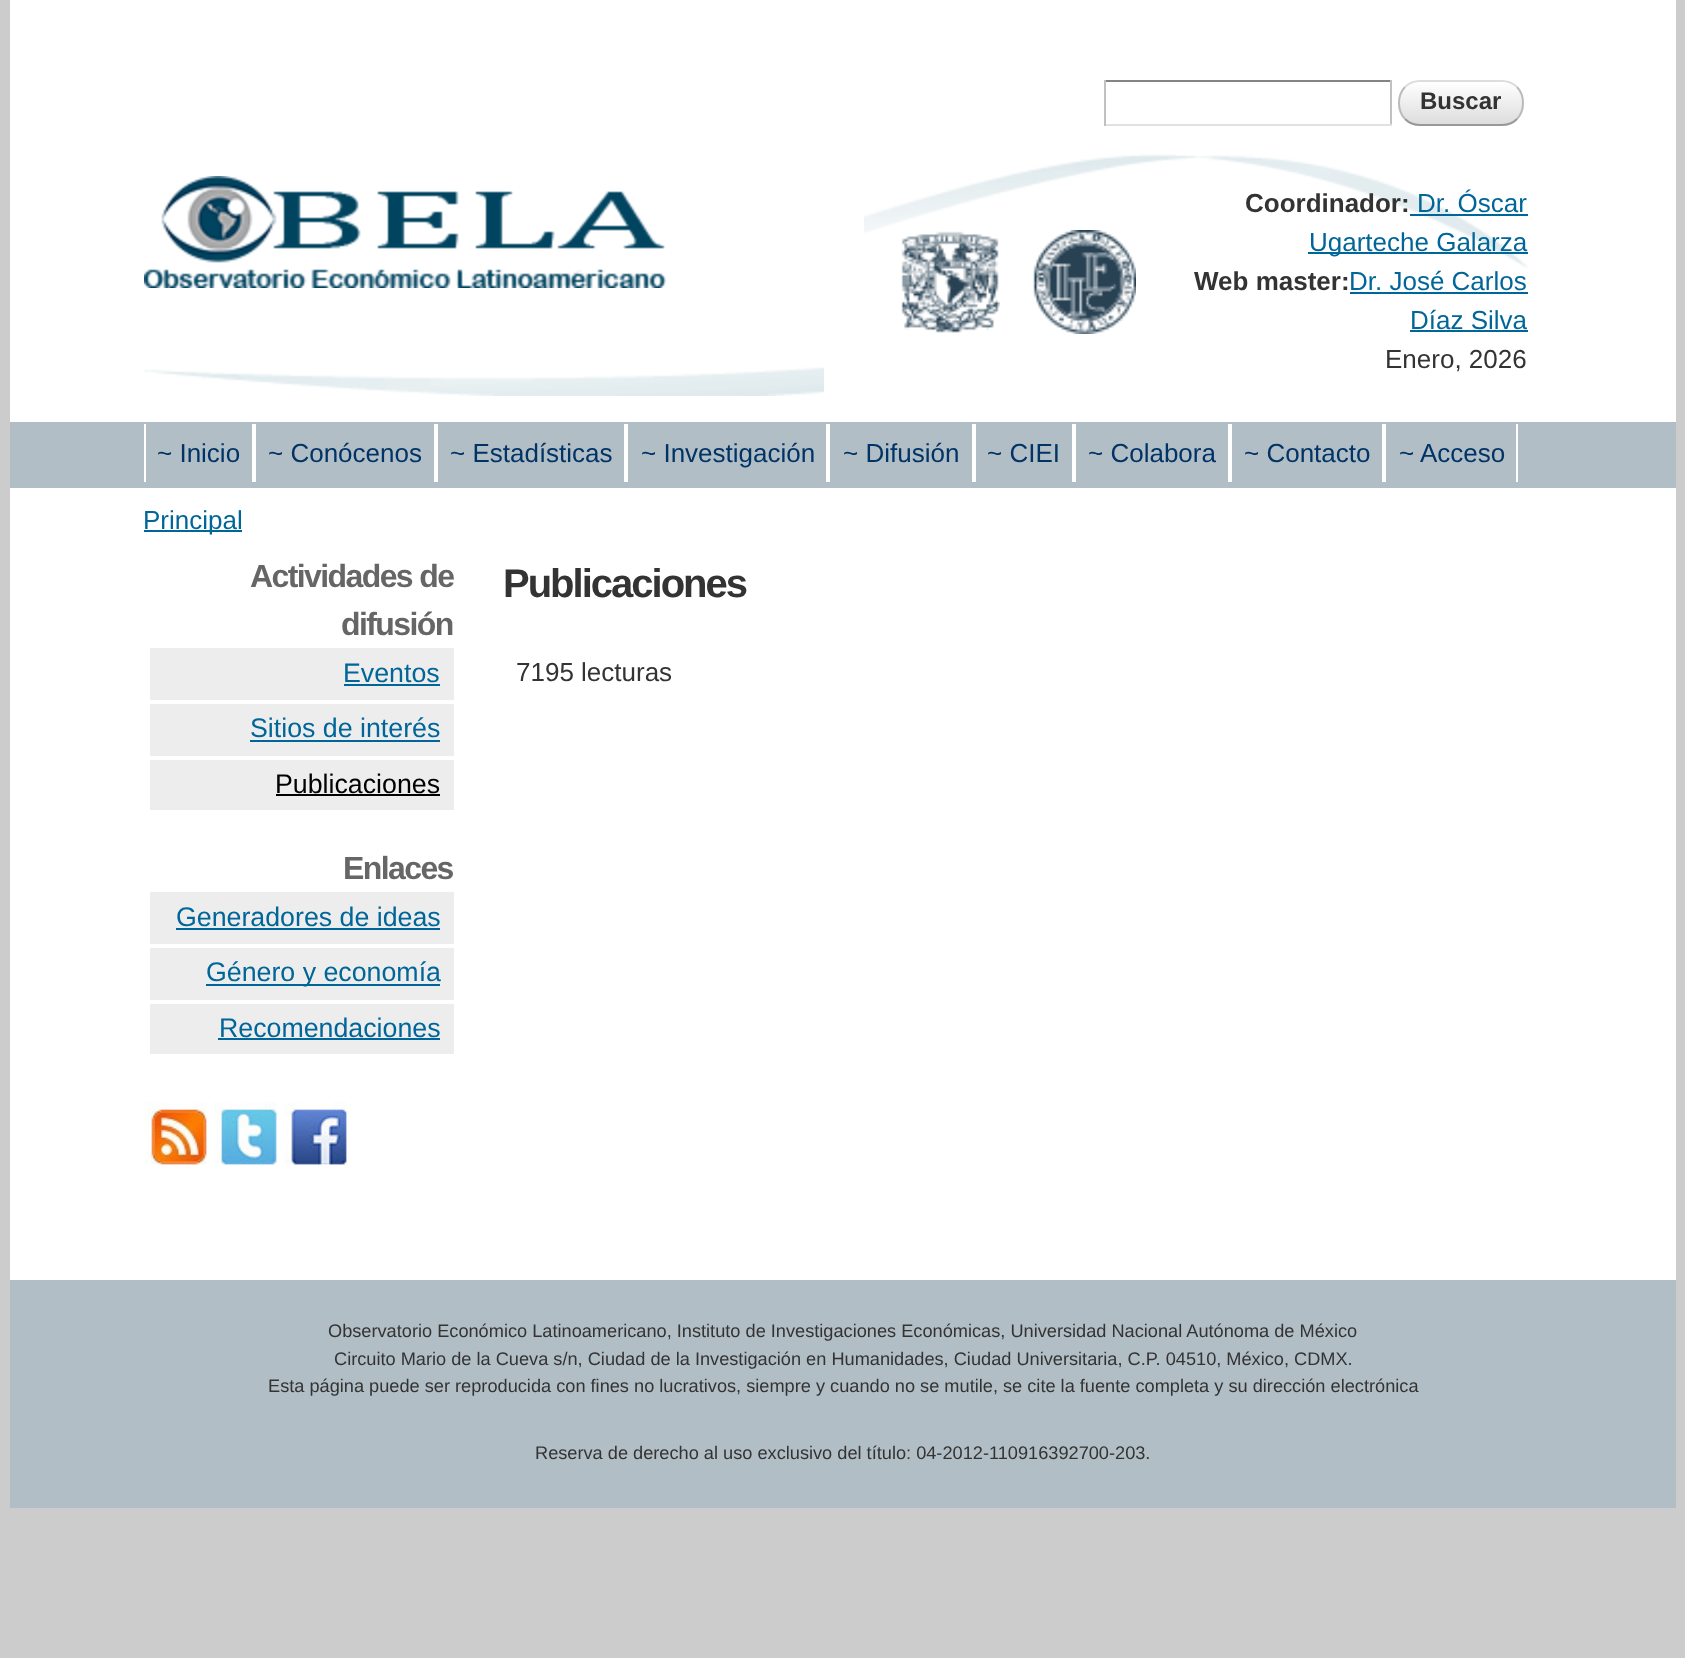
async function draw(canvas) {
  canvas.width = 1685
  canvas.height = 1658
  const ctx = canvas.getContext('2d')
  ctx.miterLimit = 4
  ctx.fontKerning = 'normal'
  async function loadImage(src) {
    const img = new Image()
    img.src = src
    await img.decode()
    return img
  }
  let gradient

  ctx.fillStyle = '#ccc'
  ctx.fillRect(0, 0, 1685, 1658)
  ctx.fillStyle = '#fff'
  ctx.fillRect(10, 0, 1666, 422)
  ctx.fillStyle = '#848484'
  ctx.fillRect(1104, 80, 288, 2)
  ctx.fillStyle = '#c1c1c1'
  ctx.fillRect(1390, 80, 2, 46)
  ctx.fillStyle = '#e1e1e1'
  ctx.fillRect(1104, 124, 288, 2)
  ctx.fillStyle = '#c1c1c1'
  ctx.fillRect(1104, 80, 2, 46)
  ctx.save()
  ctx.beginPath()
  ctx.roundRect(1398, 80, 126, 46, 22)
  ctx.clip()
  gradient = ctx.createLinearGradient(1400, 82, 1400, 124)
  gradient.addColorStop(0, '#fff')
  gradient.addColorStop(1, '#ddd')
  ctx.fillStyle = gradient
  ctx.fillRect(1398, 82, 126, 42)
  ctx.restore()
  ctx.beginPath()
  ctx.moveTo(1405, 87)
  ctx.bezierCurveTo(1409, 83, 1414.5, 81, 1420, 81)
  ctx.lineTo(1502, 81)
  ctx.bezierCurveTo(1507.5, 81, 1513, 83, 1517, 87)
  ctx.strokeStyle = '#ddd'
  ctx.lineWidth = 2
  ctx.stroke()
  ctx.beginPath()
  ctx.moveTo(1517, 87)
  ctx.bezierCurveTo(1525, 95.5, 1525, 110.5, 1517, 119)
  ctx.strokeStyle = '#bbb'
  ctx.stroke()
  ctx.beginPath()
  ctx.moveTo(1517, 119)
  ctx.bezierCurveTo(1513, 123, 1507.5, 125, 1502, 125)
  ctx.lineTo(1420, 125)
  ctx.bezierCurveTo(1414.5, 125, 1409, 123, 1405, 119)
  ctx.strokeStyle = '#999'
  ctx.stroke()
  ctx.beginPath()
  ctx.moveTo(1405, 119)
  ctx.bezierCurveTo(1397, 110.5, 1397, 95.5, 1405, 87)
  ctx.strokeStyle = '#bbb'
  ctx.stroke()
  ctx.font = 'bold 24px Liberation Sans'
  ctx.fillStyle = '#333'
  ctx.fillText('Buscar', 1420, 109)
  ctx.drawImage(await loadImage('image0.png'), 144, 367, 680, 29)
  ctx.drawImage(await loadImage('image1.png'), 144, 176, 522, 112)
  ctx.drawImage(await loadImage('image2.png'), 864, 154, 664, 114)
  ctx.drawImage(await loadImage('image3.png'), 901, 231, 99, 102)
  ctx.drawImage(await loadImage('image4.png'), 1033, 230, 103, 104)
  ctx.font = 'bold 26px Liberation Sans'
  ctx.fillText('Coordinador:', 1245, 212)
  ctx.font = '26px Liberation Sans'
  ctx.fillStyle = '#069'
  ctx.fillText('Dr. Óscar', 1417, 212)
  ctx.fillRect(1410, 214, 118, 2)
  ctx.fillRect(1308, 252, 220, 2)
  ctx.fillText('Ugarteche Galarza', 1309, 251)
  ctx.font = 'bold 26px Liberation Sans'
  ctx.fillStyle = '#333'
  ctx.fillText('Web master:', 1194, 290)
  ctx.font = '26px Liberation Sans'
  ctx.fillStyle = '#069'
  ctx.fillText('Dr. José Carlos', 1349, 290)
  ctx.fillRect(1350, 292, 178, 2)
  ctx.fillText('Díaz Silva', 1410, 329)
  ctx.fillRect(1410, 330, 118, 2)
  ctx.fillStyle = '#333'
  ctx.fillText('Enero, 2026', 1385, 368)
  ctx.fillStyle = '#b2bec5'
  ctx.fillRect(10, 422, 1666, 66)
  ctx.fillStyle = '#036'
  ctx.fillText('~ Inicio', 157, 462)
  ctx.fillStyle = '#fff'
  ctx.fillRect(252, 424, 4, 58)
  ctx.fillRect(144, 424, 2, 58)
  ctx.fillStyle = '#036'
  ctx.fillText('~ Conócenos', 268, 462)
  ctx.fillStyle = '#fff'
  ctx.fillRect(434, 424, 4, 58)
  ctx.fillStyle = '#036'
  ctx.fillText('~ Estadísticas', 450, 462)
  ctx.fillStyle = '#fff'
  ctx.fillRect(624, 424, 4, 58)
  ctx.fillStyle = '#036'
  ctx.fillText('~ Investigación', 641, 462)
  ctx.fillText('~ Difusión', 843, 462)
  ctx.fillStyle = '#fff'
  ctx.fillRect(826, 424, 4, 58)
  ctx.fillStyle = '#036'
  ctx.fillText('~ CIEI', 987, 462)
  ctx.fillStyle = '#fff'
  ctx.fillRect(972, 424, 4, 58)
  ctx.fillStyle = '#036'
  ctx.fillText('~ Colabora', 1088, 462)
  ctx.fillStyle = '#fff'
  ctx.fillRect(1072, 424, 4, 58)
  ctx.fillRect(1228, 424, 4, 58)
  ctx.fillStyle = '#036'
  ctx.fillText('~ Contacto', 1244, 462)
  ctx.fillStyle = '#fff'
  ctx.fillRect(1382, 424, 4, 58)
  ctx.fillStyle = '#036'
  ctx.fillText('~ Acceso', 1399, 462)
  ctx.fillStyle = '#fff'
  ctx.fillRect(1516, 424, 2, 58)
  ctx.fillRect(10, 488, 1666, 792)
  ctx.fillStyle = '#069'
  ctx.fillRect(144, 530, 98, 2)
  ctx.fillText('Principal', 143, 529)
  ctx.letterSpacing = '-1.6px'
  ctx.font = 'bold 32px Liberation Sans'
  ctx.fillStyle = '#666'
  ctx.fillText('Actividades de', 250, 587)
  ctx.fillText('difusión', 341, 635)
  ctx.fillStyle = '#ededed'
  ctx.fillRect(150, 648, 304, 52)
  ctx.letterSpacing = '0px'
  ctx.font = '26.75px Liberation Sans'
  ctx.fillStyle = '#069'
  ctx.fillText('Eventos', 343, 682)
  ctx.fillRect(344, 684, 96, 2)
  ctx.fillStyle = '#ededed'
  ctx.fillRect(150, 704, 304, 52)
  ctx.fillStyle = '#069'
  ctx.fillText('Sitios de interés', 250, 737)
  ctx.fillRect(250, 740, 190, 2)
  ctx.fillStyle = '#ededed'
  ctx.fillRect(150, 760, 304, 50)
  ctx.fillStyle = '#000'
  ctx.fillText('Publicaciones', 275, 793)
  ctx.fillRect(276, 794, 164, 2)
  ctx.letterSpacing = '-1.6px'
  ctx.font = 'bold 32px Liberation Sans'
  ctx.fillStyle = '#666'
  ctx.fillText('Enlaces', 343, 879)
  ctx.fillStyle = '#ededed'
  ctx.fillRect(150, 892, 304, 52)
  ctx.letterSpacing = '0px'
  ctx.font = '26.75px Liberation Sans'
  ctx.fillStyle = '#069'
  ctx.fillText('Generadores de ideas', 176, 926)
  ctx.fillRect(176, 928, 264, 2)
  ctx.fillStyle = '#ededed'
  ctx.fillRect(150, 948, 304, 52)
  ctx.fillStyle = '#069'
  ctx.fillRect(206, 984, 234, 2)
  ctx.fillText('Género y economía', 206, 981)
  ctx.fillStyle = '#ededed'
  ctx.fillRect(150, 1004, 304, 50)
  ctx.fillStyle = '#069'
  ctx.fillText('Recomendaciones', 219, 1037)
  ctx.fillRect(218, 1038, 222, 2)
  ctx.letterSpacing = '-2px'
  ctx.font = 'bold 40px Liberation Sans'
  ctx.fillStyle = '#333'
  ctx.fillText('Publicaciones', 503, 597)
  ctx.letterSpacing = '0px'
  ctx.font = '26px Liberation Sans'
  ctx.fillText('7195 lecturas', 516, 681)
  ctx.drawImage(await loadImage('image5.png'), 144, 1102, 63, 63)
  ctx.drawImage(await loadImage('image6.png'), 214, 1102, 63, 63)
  ctx.drawImage(await loadImage('image7.png'), 284, 1102, 63, 63)
  ctx.fillStyle = '#b2bec5'
  ctx.fillRect(10, 1280, 1666, 228)
  ctx.font = '18.2px Liberation Sans'
  ctx.fillStyle = '#333'
  ctx.fillText('Observatorio Económico Latinoamericano, Instituto de Investigaciones Económicas, Universidad Nacional Autónoma de México', 328, 1337)
  ctx.fillText('Circuito Mario de la Cueva s/n, Ciudad de la Investigación en Humanidades, Ciudad Universitaria, C.P. 04510, México, CDMX.', 334, 1365)
  ctx.fillText('Esta página puede ser reproducida con fines no lucrativos, siempre y cuando no se mutile, se cite la fuente completa y su dirección electrónica', 268, 1392)
  ctx.fillText('Reserva de derecho al uso exclusivo del título: 04-2012-110916392700-203.', 535, 1459)
}

draw(document.querySelector('canvas'))
